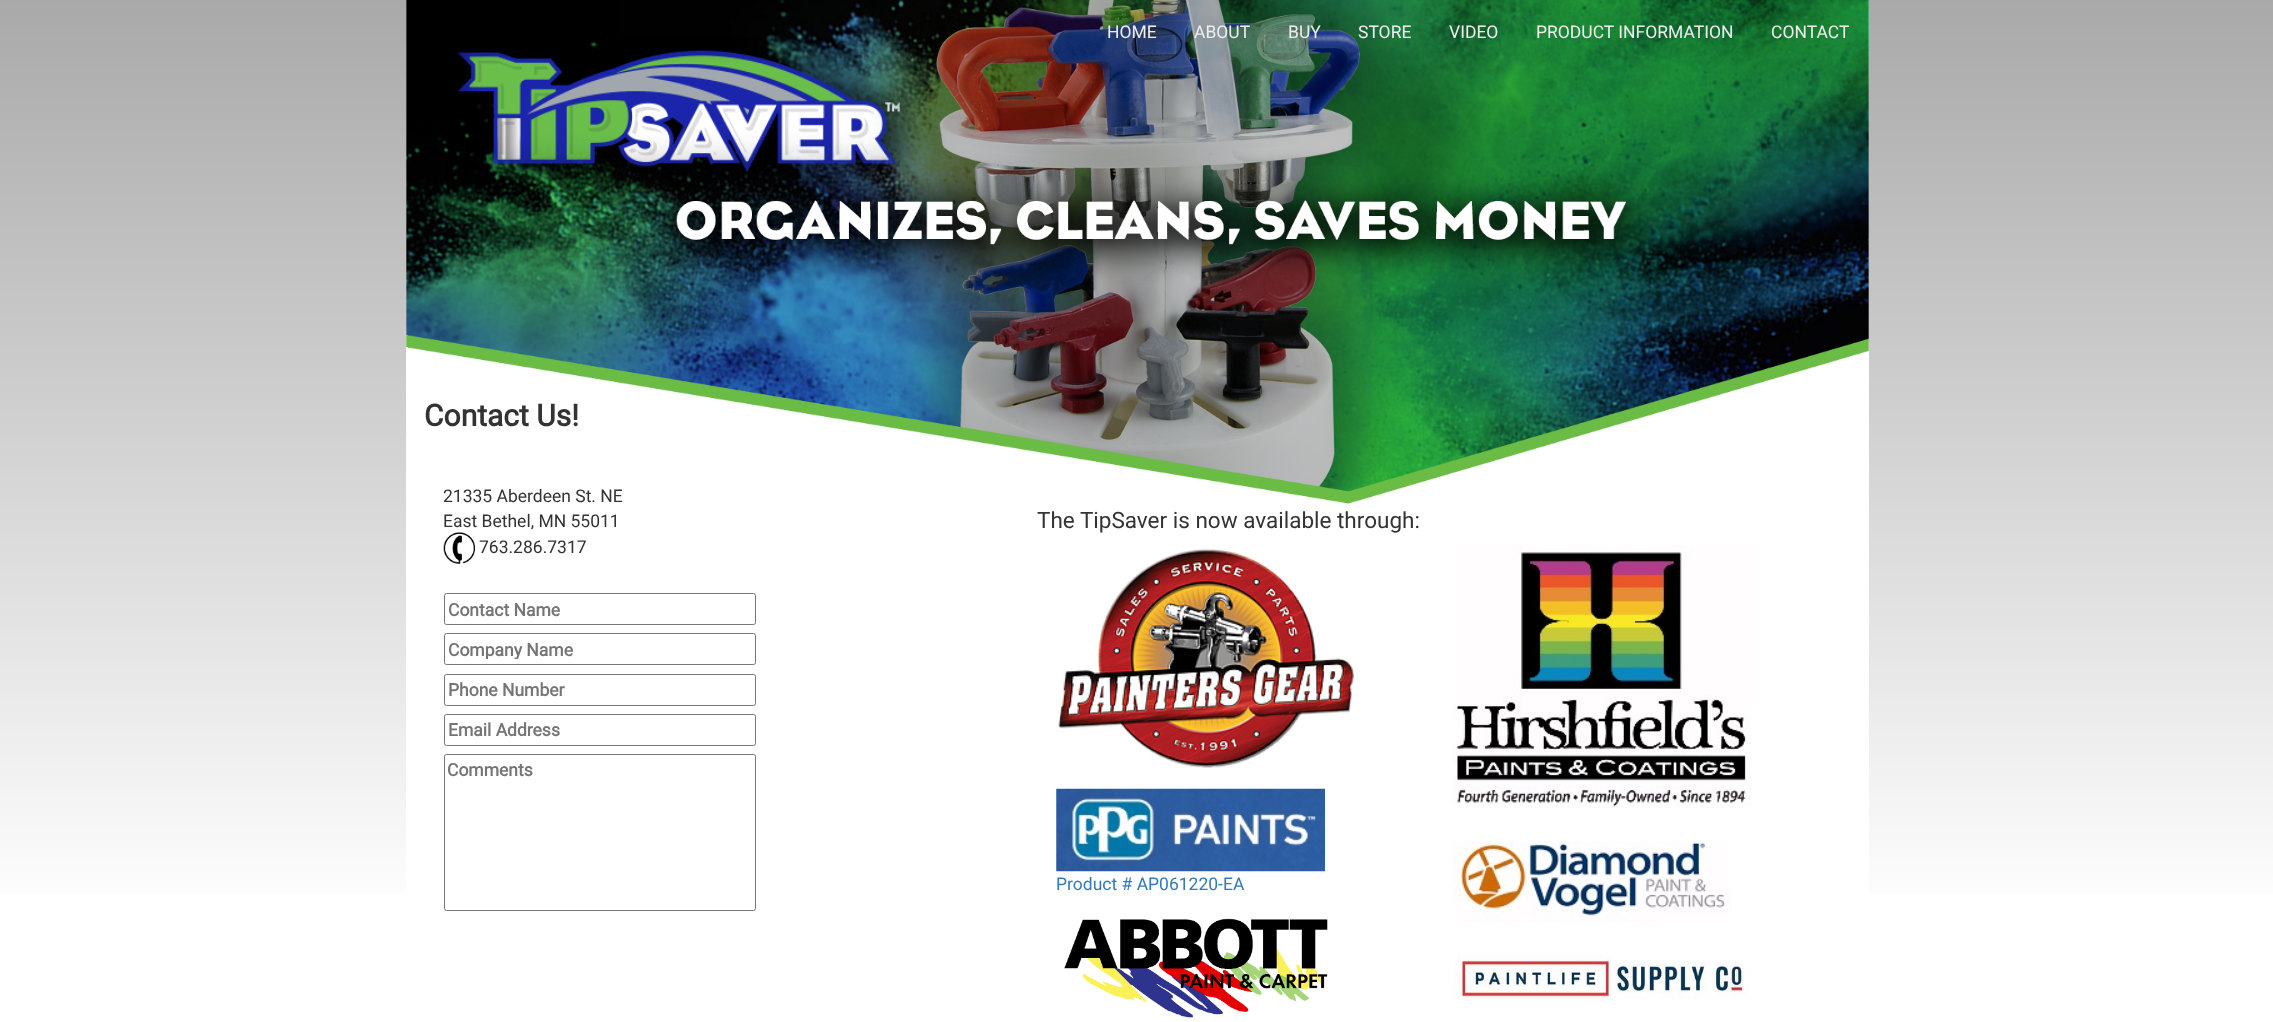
async function draw(canvas) {
  canvas.width = 2273
  canvas.height = 1022
  const ctx = canvas.getContext('2d')
  ctx.miterLimit = 4
  ctx.fontKerning = 'normal'
  async function loadImage(src) {
    const img = new Image()
    img.src = src
    await img.decode()
    return img
  }
  let gradient

  ctx.fillStyle = '#fff'
  ctx.fillRect(0, 0, 2273, 1022)
  gradient = ctx.createLinearGradient(1137, 0, 1137, 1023)
  gradient.addColorStop(0, '#a9a9a9')
  gradient.addColorStop(0.9, '#fff')
  ctx.fillStyle = gradient
  ctx.fillRect(0, 0, 2273, 894)
  ctx.fillStyle = '#fff'
  ctx.fillRect(406, 0, 1463, 894)
  ctx.drawImage(await loadImage('image0.png'), 406, 0, 1463, 507)
  ctx.font = '17.5px Roboto'
  ctx.fillStyle = '#eee'
  ctx.fillText('HOME', 1107, 38)
  ctx.fillText('ABOUT', 1194, 38)
  ctx.fillText('BUY', 1288, 38)
  ctx.fillText('STORE', 1358, 38)
  ctx.fillText('VIDEO', 1449, 38)
  ctx.fillText('PRODUCT INFORMATION', 1536, 38)
  ctx.fillText('CONTACT', 1771, 38)
  ctx.drawImage(await loadImage('image1.png'), 446, 37, 472, 156)
  ctx.font = 'bold 30px Roboto'
  ctx.fillStyle = '#333'
  ctx.fillText('Contact Us!', 424, 426)
  ctx.font = '17.5px Roboto'
  ctx.fillText('21335 Aberdeen St. NE', 443, 502)
  ctx.fillText('East Bethel, MN 55011', 443, 527)
  ctx.drawImage(await loadImage('image2.png'), 443, 532, 32, 32)
  ctx.fillText('763.286.7317', 479, 553)
  ctx.beginPath()
  ctx.roundRect(444.5, 593.5, 311, 31, 2)
  ctx.strokeStyle = '#767676'
  ctx.stroke()
  ctx.font = 'bold 17.5px Roboto'
  ctx.fillStyle = '#757575'
  ctx.fillText('Contact Name', 448, 616)
  ctx.beginPath()
  ctx.roundRect(444.5, 633.5, 311, 31, 2)
  ctx.stroke()
  ctx.save()
  ctx.beginPath()
  ctx.rect(449, 639, 302, 20)
  ctx.clip()
  ctx.fillText('Company Name', 448, 656)
  ctx.restore()
  ctx.beginPath()
  ctx.roundRect(444.5, 674.5, 311, 31, 2)
  ctx.stroke()
  ctx.fillText('Phone Number', 448, 696)
  ctx.beginPath()
  ctx.roundRect(444.5, 714.5, 311, 31, 2)
  ctx.stroke()
  ctx.fillText('Email Address', 448, 736)
  ctx.beginPath()
  ctx.roundRect(444.5, 754.5, 311, 156, 2)
  ctx.stroke()
  ctx.fillText('Comments', 447, 776)
  ctx.font = '22.5px Roboto'
  ctx.fillStyle = '#333'
  ctx.fillText('The TipSaver is now available through:', 1037, 528)
  ctx.drawImage(await loadImage('image3.png'), 1058, 548, 296, 220)
  ctx.drawImage(await loadImage('image4.png'), 1056, 788, 269, 84)
  ctx.font = '17.5px Roboto'
  ctx.fillStyle = '#337ab7'
  ctx.fillText('Product # AP061220-EA', 1056, 890)
  ctx.drawImage(await loadImage('image5.png'), 1064, 918, 264, 100)
  ctx.drawImage(await loadImage('image6.png'), 1452, 545, 299, 263)
  ctx.drawImage(await loadImage('image7.png'), 1452, 841, 279, 81)
  ctx.drawImage(await loadImage('image8.png'), 1452, 953, 298, 46)
}

draw(document.querySelector('canvas'))
